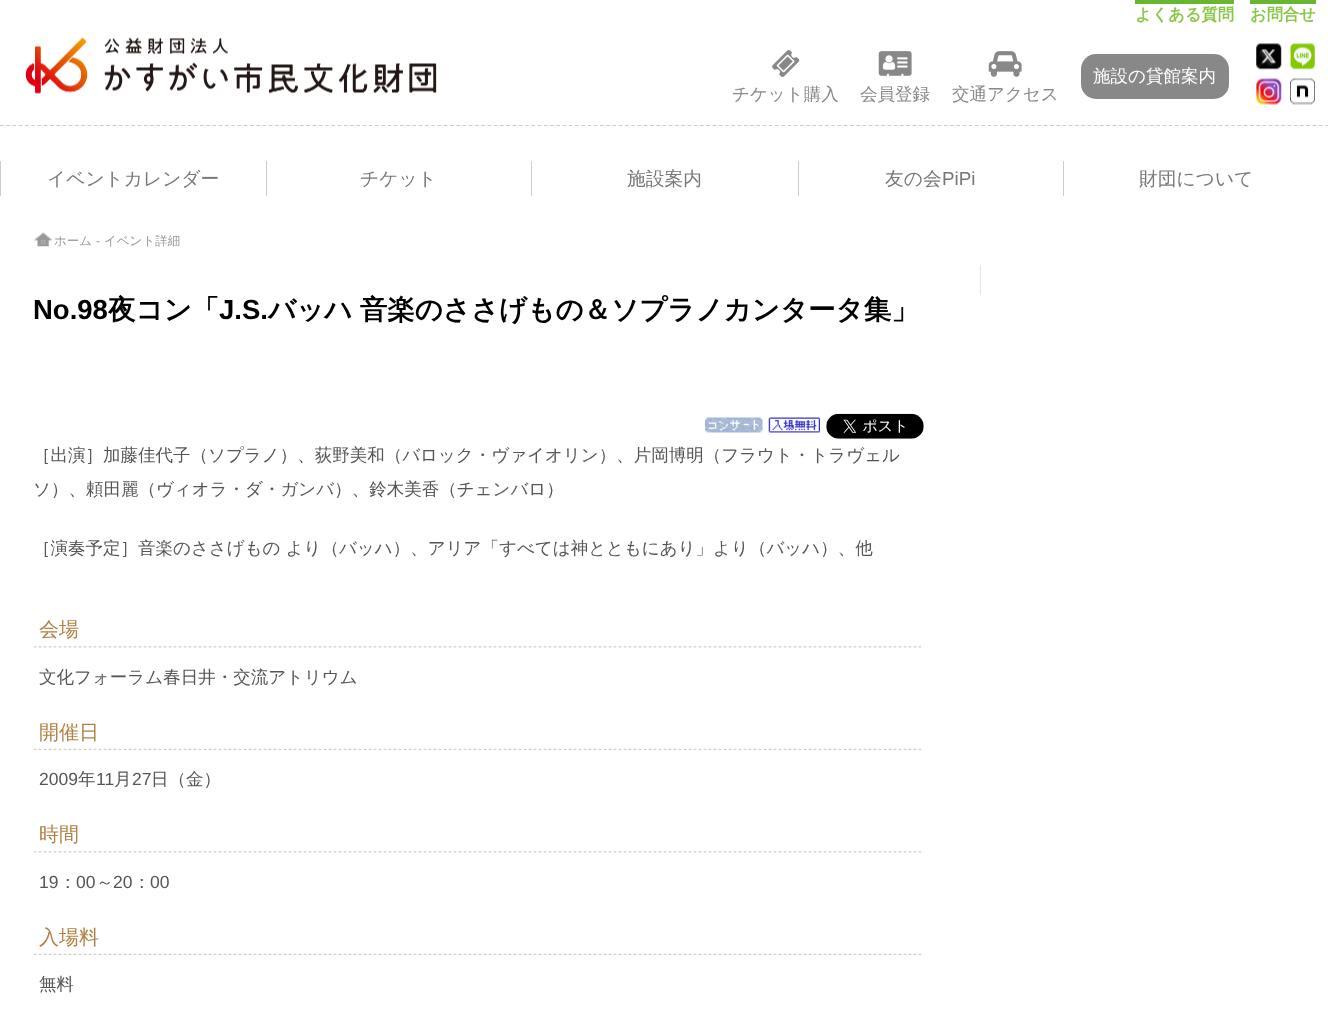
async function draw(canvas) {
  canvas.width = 1328
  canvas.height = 1021
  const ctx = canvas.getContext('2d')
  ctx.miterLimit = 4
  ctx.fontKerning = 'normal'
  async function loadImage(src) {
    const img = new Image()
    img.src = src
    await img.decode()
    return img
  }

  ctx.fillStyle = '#fff'
  ctx.fillRect(0, 0, 1328, 1021)
  ctx.drawImage(await loadImage('image0.png'), 25, 37, 412, 57)
  ctx.fillStyle = '#67b733'
  ctx.fillRect(1135, 0, 99, 4)
  ctx.font = 'bold 16.25px WenQuanYi Zen Hei'
  ctx.fillStyle = '#87c743'
  ctx.fillText('よくある質問', 1135, 20)
  ctx.fillStyle = '#67b733'
  ctx.fillRect(1250, 0, 66, 4)
  ctx.fillStyle = '#87c743'
  ctx.fillText('お問合せ', 1250, 20)
  ctx.fillStyle = '#888'
  ctx.beginPath()
  ctx.roundRect(1081, 54, 148, 45, 15)
  ctx.fill()
  ctx.font = '500 17.5px WenQuanYi Zen Hei'
  ctx.fillStyle = '#fff'
  ctx.fillText('施設の貸館案内', 1093, 82)
  ctx.drawImage(await loadImage('image1.png'), 1256, 43, 26, 27)
  ctx.drawImage(await loadImage('image2.png'), 1290, 43, 25, 27)
  ctx.drawImage(await loadImage('image3.png'), 1256, 78, 26, 27)
  ctx.drawImage(await loadImage('image4.png'), 1290, 78, 25, 27)
  ctx.drawImage(await loadImage('image5.png'), 772, 50, 28, 27)
  ctx.fillStyle = '#888'
  ctx.fillText('チケット購入', 732, 100)
  ctx.drawImage(await loadImage('image6.png'), 878, 51, 34, 25)
  ctx.fillText('会員登録', 860, 100)
  ctx.drawImage(await loadImage('image7.png'), 988, 51, 34, 26)
  ctx.fillText('交通アクセス', 952, 100)
  ctx.beginPath()
  ctx.moveTo(0, 125.5)
  ctx.lineTo(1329, 125.5)
  ctx.strokeStyle = '#ccc'
  ctx.lineWidth = 1.2
  ctx.setLineDash([3.75, 2.5])
  ctx.stroke()
  ctx.fillStyle = '#ccc'
  ctx.beginPath()
  ctx.roundRect(0, 161, 1, 35, 0.5)
  ctx.fill()
  ctx.font = '500 18.75px WenQuanYi Zen Hei'
  ctx.fillStyle = '#777'
  ctx.fillText('イベントカレンダー', 47, 185)
  ctx.fillStyle = '#ccc'
  ctx.beginPath()
  ctx.roundRect(266, 161, 1, 35, 0.5)
  ctx.fill()
  ctx.fillStyle = '#777'
  ctx.fillText('チケット', 360, 185)
  ctx.fillStyle = '#ccc'
  ctx.beginPath()
  ctx.roundRect(531, 161, 1, 35, 0.5)
  ctx.fill()
  ctx.fillStyle = '#777'
  ctx.fillText('施設案内', 627, 185)
  ctx.fillStyle = '#ccc'
  ctx.beginPath()
  ctx.roundRect(798, 161, 1, 35, 0.5)
  ctx.fill()
  ctx.fillStyle = '#777'
  ctx.fillText('友の会', 885, 185)
  ctx.font = '18.75px Liberation Sans'
  ctx.fillText('PiPi', 942, 185)
  ctx.fillStyle = '#ccc'
  ctx.beginPath()
  ctx.roundRect(1063, 161, 1, 35, 0.5)
  ctx.fill()
  ctx.font = '500 18.75px WenQuanYi Zen Hei'
  ctx.fillStyle = '#777'
  ctx.fillText('財団について', 1139, 185)
  ctx.drawImage(await loadImage('image8.png'), 33, 232, 20, 15)
  ctx.font = '500 12.5px WenQuanYi Zen Hei'
  ctx.fillStyle = '#999'
  ctx.fillText('ホーム', 54, 245)
  ctx.font = '12.5px Liberation Sans'
  ctx.fillText('-', 96, 245)
  ctx.font = '500 12.5px WenQuanYi Zen Hei'
  ctx.fillText('イベント詳細', 104, 245)
  ctx.fillStyle = '#e5e5e5'
  ctx.fillRect(980, 265, 1, 30)
  ctx.font = 'bold 27.5px Liberation Sans'
  ctx.fillStyle = '#000'
  ctx.fillText('No.98', 33, 319)
  ctx.font = 'bold 27.5px WenQuanYi Zen Hei'
  ctx.fillText('夜コン「', 108, 319)
  ctx.font = 'bold 27.5px Liberation Sans'
  ctx.fillText('J.S.', 219, 319)
  ctx.wordSpacing = '-1px'
  ctx.font = 'bold 27.5px WenQuanYi Zen Hei'
  ctx.fillText('バッハ 音楽のささげもの＆ソプラノカンタータ集」', 268, 319)
  ctx.drawImage(await loadImage('image9.png'), 705, 417, 58, 16)
  ctx.drawImage(await loadImage('image10.png'), 768, 417, 52, 16)
  ctx.drawImage(await loadImage('image11.png'), 826, 413, 98, 26)
  ctx.wordSpacing = '0px'
  ctx.font = '500 17.5px WenQuanYi Zen Hei'
  ctx.fillStyle = '#555'
  ctx.fillText('［出演］加藤佳代子（ソプラノ）、荻野美和（バロック・ヴァイオリン）、片岡博明（フラウト・トラヴェル', 33, 461)
  ctx.fillText('ソ）、頼田麗（ヴィオラ・ダ・ガンバ）、鈴木美香（チェンバロ）', 33, 495)
  ctx.fillText('［演奏予定］音楽のささげもの より（バッハ）、アリア「すべては神とともにあり」より（バッハ）、他', 33, 554)
  ctx.drawImage(await loadImage('image12.png'), 34, 646, 890, 2)
  ctx.font = '500 20px WenQuanYi Zen Hei'
  ctx.fillStyle = '#b08045'
  ctx.fillText('会場', 39, 636)
  ctx.font = '500 17.5px WenQuanYi Zen Hei'
  ctx.fillStyle = '#555'
  ctx.fillText('文化フォーラム春日井・交流アトリウム', 39, 683)
  ctx.drawImage(await loadImage('image13.png'), 33, 748, 891, 2)
  ctx.font = '500 20px WenQuanYi Zen Hei'
  ctx.fillStyle = '#b08045'
  ctx.fillText('開催日', 39, 739)
  ctx.font = '17.5px Liberation Sans'
  ctx.fillStyle = '#555'
  ctx.fillText('2009', 39, 785)
  ctx.font = '500 17.5px WenQuanYi Zen Hei'
  ctx.fillText('年', 78, 785)
  ctx.font = '17.5px Liberation Sans'
  ctx.fillText('11', 96, 785)
  ctx.font = '500 17.5px WenQuanYi Zen Hei'
  ctx.fillText('月', 114, 785)
  ctx.font = '17.5px Liberation Sans'
  ctx.fillText('27', 132, 785)
  ctx.font = '500 17.5px WenQuanYi Zen Hei'
  ctx.fillText('日（金）', 151, 785)
  ctx.drawImage(await loadImage('image12.png'), 34, 851, 890, 2)
  ctx.font = '500 20px WenQuanYi Zen Hei'
  ctx.fillStyle = '#b08045'
  ctx.fillText('時間', 39, 841)
  ctx.font = '17.5px Liberation Sans'
  ctx.fillStyle = '#555'
  ctx.fillText('19', 39, 888)
  ctx.font = '500 17.5px WenQuanYi Zen Hei'
  ctx.fillText('：', 59, 888)
  ctx.font = '17.5px Liberation Sans'
  ctx.fillText('00', 76, 888)
  ctx.font = '500 17.5px WenQuanYi Zen Hei'
  ctx.fillText('～', 96, 888)
  ctx.font = '17.5px Liberation Sans'
  ctx.fillText('20', 113, 888)
  ctx.font = '500 17.5px WenQuanYi Zen Hei'
  ctx.fillText('：', 133, 888)
  ctx.font = '17.5px Liberation Sans'
  ctx.fillText('00', 150, 888)
  ctx.drawImage(await loadImage('image13.png'), 33, 953, 891, 2)
  ctx.font = '500 20px WenQuanYi Zen Hei'
  ctx.fillStyle = '#b08045'
  ctx.fillText('入場料', 39, 944)
  ctx.font = '500 17.5px WenQuanYi Zen Hei'
  ctx.fillStyle = '#555'
  ctx.fillText('無料', 39, 990)
}

draw(document.querySelector('canvas'))
